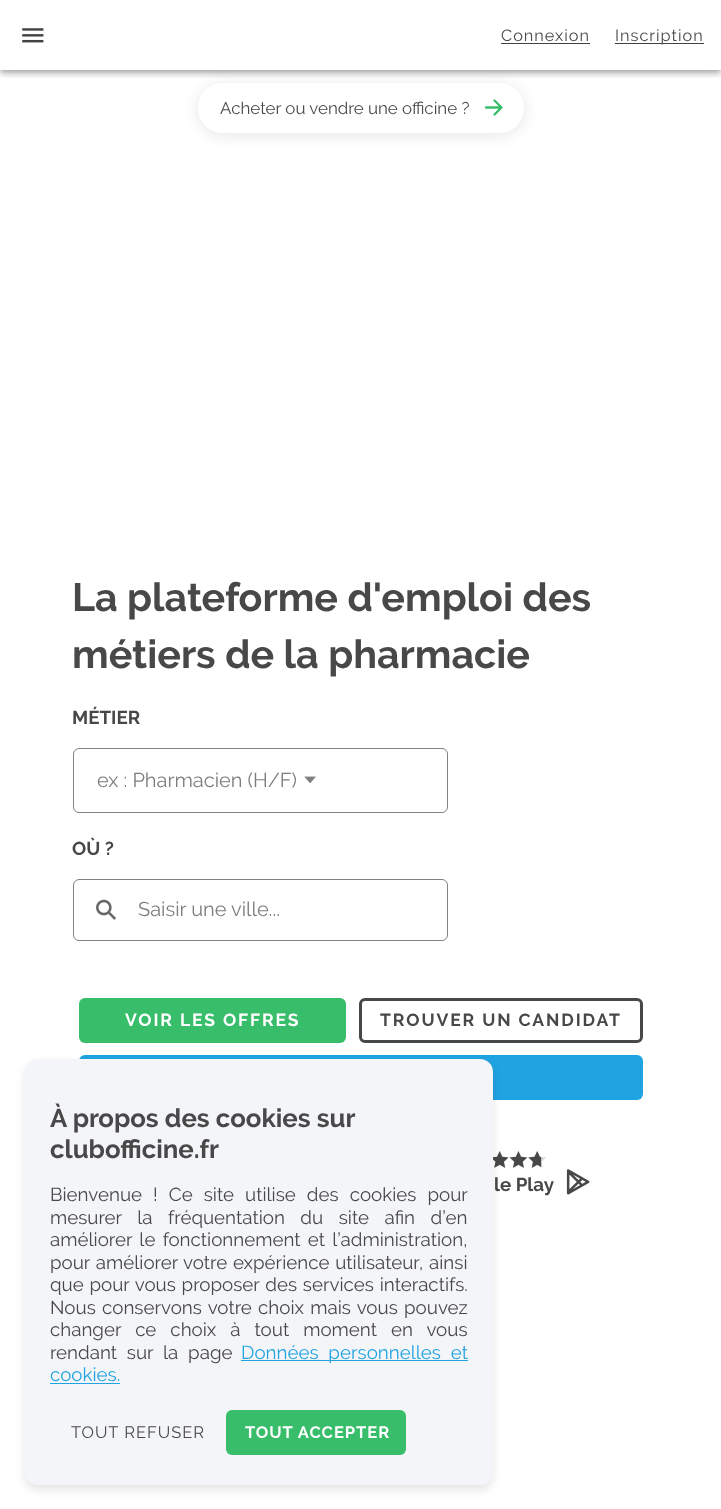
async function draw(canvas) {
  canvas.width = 721
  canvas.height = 1509
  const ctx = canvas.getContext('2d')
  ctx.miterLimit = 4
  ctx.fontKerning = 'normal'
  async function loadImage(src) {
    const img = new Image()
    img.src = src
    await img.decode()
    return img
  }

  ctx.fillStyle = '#fff'
  ctx.fillRect(0, 0, 721, 1509)
  ctx.save()
  ctx.beginPath()
  ctx.moveTo(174, 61)
  ctx.lineTo(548, 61)
  ctx.lineTo(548, 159)
  ctx.lineTo(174, 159)
  ctx.closePath()
  ctx.moveTo(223, 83)
  ctx.lineTo(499, 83)
  ctx.bezierCurveTo(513, 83, 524, 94, 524, 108)
  ctx.bezierCurveTo(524, 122, 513, 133, 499, 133)
  ctx.lineTo(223, 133)
  ctx.bezierCurveTo(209, 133, 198, 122, 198, 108)
  ctx.bezierCurveTo(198, 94, 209, 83, 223, 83)
  ctx.closePath()
  ctx.clip('evenodd')
  ctx.fillStyle = '#0000001a'
  ctx.filter = 'blur(7.5px)'
  ctx.beginPath()
  ctx.roundRect(198, 85, 326, 50, 25)
  ctx.fill()
  ctx.filter = 'none'
  ctx.restore()
  ctx.fillStyle = '#fffffff2'
  ctx.beginPath()
  ctx.roundRect(198, 83, 326, 50, 25)
  ctx.fill()
  ctx.save()
  ctx.beginPath()
  ctx.rect(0, 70, 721, 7)
  ctx.clip()
  ctx.fillStyle = '#0000001f'
  ctx.filter = 'blur(6px)'
  ctx.beginPath()
  ctx.rect(0, 1, 721, 70)
  ctx.fill()
  ctx.filter = 'none'
  ctx.restore()
  ctx.save()
  ctx.beginPath()
  ctx.rect(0, 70, 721, 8)
  ctx.clip()
  ctx.fillStyle = '#00000024'
  ctx.filter = 'blur(3px)'
  ctx.beginPath()
  ctx.rect(0, 5, 721, 70)
  ctx.fill()
  ctx.filter = 'none'
  ctx.restore()
  ctx.save()
  ctx.beginPath()
  ctx.rect(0, 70, 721, 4)
  ctx.clip()
  ctx.fillStyle = '#00000033'
  ctx.filter = 'blur(2.5px)'
  ctx.beginPath()
  ctx.rect(1, 4, 719, 67)
  ctx.fill()
  ctx.filter = 'none'
  ctx.restore()
  ctx.drawImage(await loadImage('image0.png'), 22, 28, 22, 15)
  ctx.letterSpacing = '1px'
  ctx.font = '16.25px Raleway'
  ctx.fillStyle = '#484848'
  ctx.fillText('Connexion', 501, 41)
  ctx.fillStyle = '#424242'
  ctx.fillRect(501, 43, 89, 1)
  ctx.fillRect(615, 43, 89, 1)
  ctx.fillStyle = '#484848'
  ctx.fillText('Inscription', 615, 41)
  ctx.letterSpacing = '0px'
  ctx.font = '16.9px Raleway'
  ctx.fillText('Acheter ou vendre une officine ?', 220, 114)
  ctx.beginPath()
  ctx.moveTo(494.5, 100.5)
  ctx.lineTo(501.5, 107.5)
  ctx.lineTo(494.5, 114.5)
  ctx.moveTo(500.5, 107.5)
  ctx.lineTo(486, 107.5)
  ctx.strokeStyle = '#38be6b'
  ctx.lineWidth = 2.3
  ctx.lineCap = 'round'
  ctx.lineJoin = 'round'
  ctx.stroke()
  ctx.font = 'bold 39.4px Raleway'
  ctx.fillText('La plateforme d\'emploi des', 72, 611)
  ctx.fillText('métiers de la pharmacie', 72, 668)
  ctx.font = 'bold 18.75px Raleway'
  ctx.fillText('MÉTIER', 72, 724)
  ctx.beginPath()
  ctx.roundRect(73.5, 748.5, 374, 64, 5.5)
  ctx.strokeStyle = '#808284'
  ctx.lineWidth = 1
  ctx.lineJoin = 'miter'
  ctx.stroke()
  ctx.font = '20px Raleway'
  ctx.fillStyle = '#7d7d7d'
  ctx.fillText('ex : Pharmacien (H/F)', 97, 787)
  ctx.drawImage(await loadImage('image1.png'), 304, 776, 12, 8)
  ctx.font = 'bold 18.75px Raleway'
  ctx.fillStyle = '#484848'
  ctx.fillText('OÙ ?', 72, 855)
  ctx.beginPath()
  ctx.roundRect(73.5, 879.5, 374, 61, 5.5)
  ctx.stroke()
  ctx.drawImage(await loadImage('image2.png'), 96, 899, 20, 21)
  ctx.font = '20px Raleway'
  ctx.fillStyle = '#7d7d7d'
  ctx.fillText('Saisir une ville...', 138, 916)
  ctx.fillStyle = '#38be6b'
  ctx.beginPath()
  ctx.roundRect(79, 998, 267, 45, 6)
  ctx.fill()
  ctx.letterSpacing = '1.9px'
  ctx.font = 'bold 17.5px Raleway'
  ctx.fillStyle = '#fff'
  ctx.fillText('VOIR LES OFFRES', 125, 1026)
  ctx.beginPath()
  ctx.roundRect(360.5, 999.5, 281, 42, 4.5)
  ctx.strokeStyle = '#484848'
  ctx.lineWidth = 3
  ctx.stroke()
  ctx.fillStyle = '#484848'
  ctx.fillText('TROUVER UN CANDIDAT', 380, 1026)
  ctx.fillStyle = '#20a3e1'
  ctx.beginPath()
  ctx.roundRect(79, 1055, 564, 45, 6)
  ctx.fill()
  ctx.drawImage(await loadImage('image3.png'), 493, 1151, 16, 17)
  ctx.drawImage(await loadImage('image4.png'), 509, 1151, 19, 17)
  ctx.drawImage(await loadImage('image5.png'), 528, 1151, 18, 17)
  ctx.drawImage(await loadImage('image6.png'), 528, 1151, 14, 17)
  ctx.letterSpacing = '0px'
  ctx.font = 'bold 18.75px Raleway'
  ctx.fillStyle = '#484848'
  ctx.fillText('le Play', 494, 1191)
  ctx.drawImage(await loadImage('image7.png'), 566, 1169, 24, 26)
  ctx.fillStyle = '#0000001a'
  ctx.filter = 'blur(5px)'
  ctx.beginPath()
  ctx.roundRect(25, 1064, 468, 426, 13)
  ctx.fill()
  ctx.filter = 'none'
  ctx.fillStyle = '#f4f5f8'
  ctx.beginPath()
  ctx.roundRect(25, 1059, 468, 426, 13)
  ctx.fill()
  ctx.font = 'bold 25.75px Raleway'
  ctx.fillStyle = '#484848'
  ctx.fillText('À propos des cookies sur', 50, 1127)
  ctx.fillText('clubofficine.fr', 50, 1158)
  ctx.wordSpacing = '6.25px'
  ctx.font = '18.75px Raleway'
  ctx.fillText('Bienvenue ! Ce site utilise des cookies pour', 50, 1201)
  ctx.wordSpacing = '10.75px'
  ctx.fillText('mesurer la fréquentation du site afin d’en', 50, 1224)
  ctx.wordSpacing = '2.5px'
  ctx.fillText('améliorer le fonctionnement et l’administration,', 50, 1246)
  ctx.wordSpacing = '1px'
  ctx.fillText('pour améliorer votre expérience utilisateur, ainsi', 50, 1269)
  ctx.fillText('que pour vous proposer des services interactifs.', 50, 1291)
  ctx.wordSpacing = '1.5px'
  ctx.fillText('Nous conservons votre choix mais vous pouvez', 50, 1314)
  ctx.wordSpacing = '9.25px'
  ctx.fillText('changer ce choix à tout moment en vous', 50, 1336)
  ctx.wordSpacing = '5px'
  ctx.fillText('rendant sur la page', 50, 1359)
  ctx.fillStyle = '#20a3e1'
  ctx.fillRect(241, 1360, 227, 1)
  ctx.fillText('Données personnelles et', 241, 1359)
  ctx.wordSpacing = '0px'
  ctx.fillText('cookies.', 50, 1381)
  ctx.fillRect(50, 1383, 70, 1)
  ctx.letterSpacing = '1px'
  ctx.font = '16.5px Raleway'
  ctx.fillStyle = '#484848'
  ctx.fillText('TOUT REFUSER', 71, 1438)
  ctx.fillStyle = '#38be6b'
  ctx.beginPath()
  ctx.roundRect(226, 1410, 180, 45, 6)
  ctx.fill()
  ctx.font = 'bold 16.5px Raleway'
  ctx.fillStyle = '#fff'
  ctx.fillText('TOUT ACCEPTER', 245, 1438)
}

draw(document.querySelector('canvas'))
